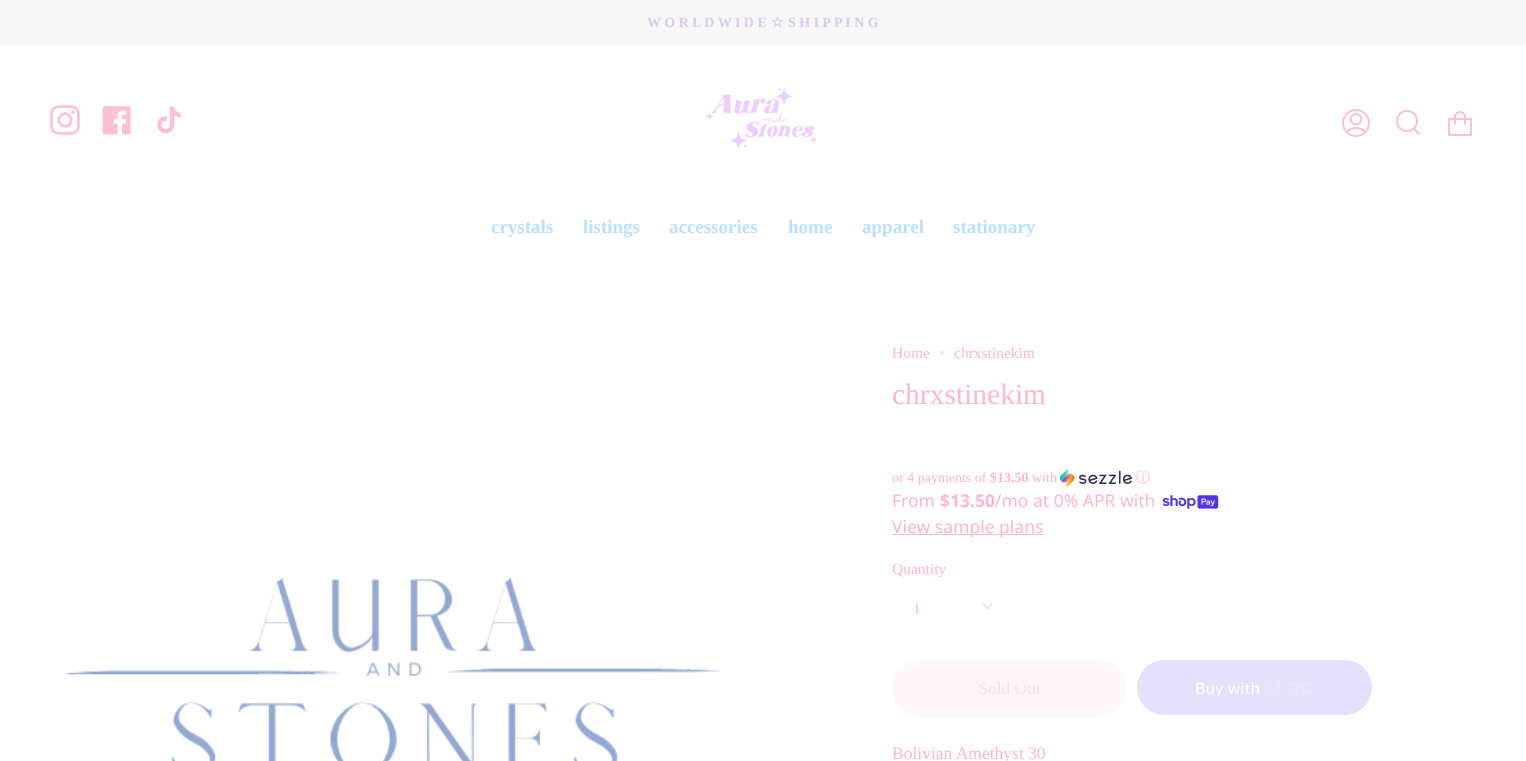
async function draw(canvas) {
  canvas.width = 1526
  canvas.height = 761
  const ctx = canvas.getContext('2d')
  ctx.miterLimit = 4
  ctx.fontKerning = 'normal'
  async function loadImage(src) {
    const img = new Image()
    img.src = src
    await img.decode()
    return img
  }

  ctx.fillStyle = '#fff'
  ctx.fillRect(0, 0, 1526, 761)
  ctx.fillStyle = '#f7f7f7'
  ctx.fillRect(0, 0, 1526, 45)
  ctx.font = 'bold 14px Liberation Serif'
  ctx.fillStyle = '#dacaef'
  ctx.fillText('W O R L D W I D E', 647, 27)
  ctx.font = 'bold 14px DejaVu Sans'
  ctx.fillText('☆', 771, 27)
  ctx.font = 'bold 14px Liberation Serif'
  ctx.fillText('S H I P P I N G', 788, 27)
  ctx.drawImage(await loadImage('image0.png'), 50, 105, 30, 30)
  ctx.drawImage(await loadImage('image1.png'), 102, 106, 29, 29)
  ctx.drawImage(await loadImage('image2.png'), 157, 106, 24, 28)
  ctx.drawImage(await loadImage('image3.png'), 705, 87, 112, 63)
  ctx.drawImage(await loadImage('image4.png'), 1342, 109, 28, 28)
  ctx.drawImage(await loadImage('image5.png'), 1396, 110, 24, 25)
  ctx.drawImage(await loadImage('image6.png'), 1448, 111, 24, 25)
  ctx.font = 'bold 19px Liberation Serif'
  ctx.fillStyle = '#bce1ff'
  ctx.fillText('crystals', 491, 233)
  ctx.fillText('listings', 583, 233)
  ctx.fillText('accessories', 669, 233)
  ctx.fillText('home', 788, 233)
  ctx.fillText('apparel', 862, 233)
  ctx.fillText('stationary', 953, 233)
  ctx.drawImage(await loadImage('image7.png'), 65, 577, 656, 184)
  ctx.font = '15.5px Liberation Serif'
  ctx.fillStyle = '#ffb9ce'
  ctx.fillText('Home', 892, 358)
  ctx.fillStyle = '#ffe3eb'
  ctx.beginPath()
  ctx.arc(942, 353, 2, 0, 2 * Math.PI)
  ctx.fill()
  ctx.fillStyle = '#ffb9ce'
  ctx.fillText('chrxstinekim', 954, 358)
  ctx.font = '29.5px Liberation Serif'
  ctx.fillText('chrxstinekim', 892, 404)
  ctx.font = '14px Liberation Serif'
  ctx.fillText('or 4 payments of', 892, 482)
  ctx.font = 'bold 14px Liberation Serif'
  ctx.fillText('$13.50', 990, 482)
  ctx.font = '14px Liberation Serif'
  ctx.fillText('with', 1032, 482)
  ctx.drawImage(await loadImage('image8.png'), 1060, 469, 72, 18)
  ctx.font = '500 14px WenQuanYi Zen Hei'
  ctx.fillText('ⓘ', 1136, 482)
  ctx.font = '17.5px Noto Sans'
  ctx.fillText('From', 892, 507)
  ctx.font = 'bold 17.5px Noto Sans'
  ctx.fillText('$13.50', 940, 507)
  ctx.font = '17.5px Noto Sans'
  ctx.fillText('/mo at 0% APR with', 995, 507)
  ctx.drawImage(await loadImage('image9.png'), 1162, 495, 57, 14)
  ctx.fillRect(892, 534, 152, 1)
  ctx.fillText('View sample plans', 892, 533)
  ctx.font = '15.5px Liberation Serif'
  ctx.fillText('Quantity', 892, 574)
  ctx.fillText('1', 913, 613)
  ctx.fillStyle = '#dacaef'
  ctx.beginPath()
  ctx.moveTo(987, 608.5)
  ctx.lineTo(991.5, 603.5)
  ctx.lineTo(992.5, 604)
  ctx.lineTo(987.5, 609)
  ctx.closePath()
  ctx.fill()
  ctx.beginPath()
  ctx.moveTo(982.5, 604)
  ctx.lineTo(983.5, 603.5)
  ctx.lineTo(988, 608.5)
  ctx.lineTo(987.5, 609)
  ctx.closePath()
  ctx.fill()
  ctx.fillStyle = '#fff8fa'
  ctx.beginPath()
  ctx.roundRect(892, 660, 235, 57, 28.5)
  ctx.fill()
  ctx.font = '17.5px Liberation Serif'
  ctx.fillStyle = '#ffdfe8'
  ctx.fillText('Sold Out', 978, 694)
  ctx.fillStyle = '#e5e0fc'
  ctx.beginPath()
  ctx.roundRect(1137, 660, 235, 55, 27.5)
  ctx.fill()
  ctx.font = '16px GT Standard'
  ctx.fillStyle = '#fff'
  ctx.fillText('Buy with', 1195, 694)
  ctx.drawImage(await loadImage('image10.png'), 1265, 679, 48, 19)
  ctx.font = '17.5px Liberation Serif'
  ctx.fillStyle = '#ffb9ce'
  ctx.fillText('Bolivian Amethyst 30', 892, 759)
}

draw(document.querySelector('canvas'))
